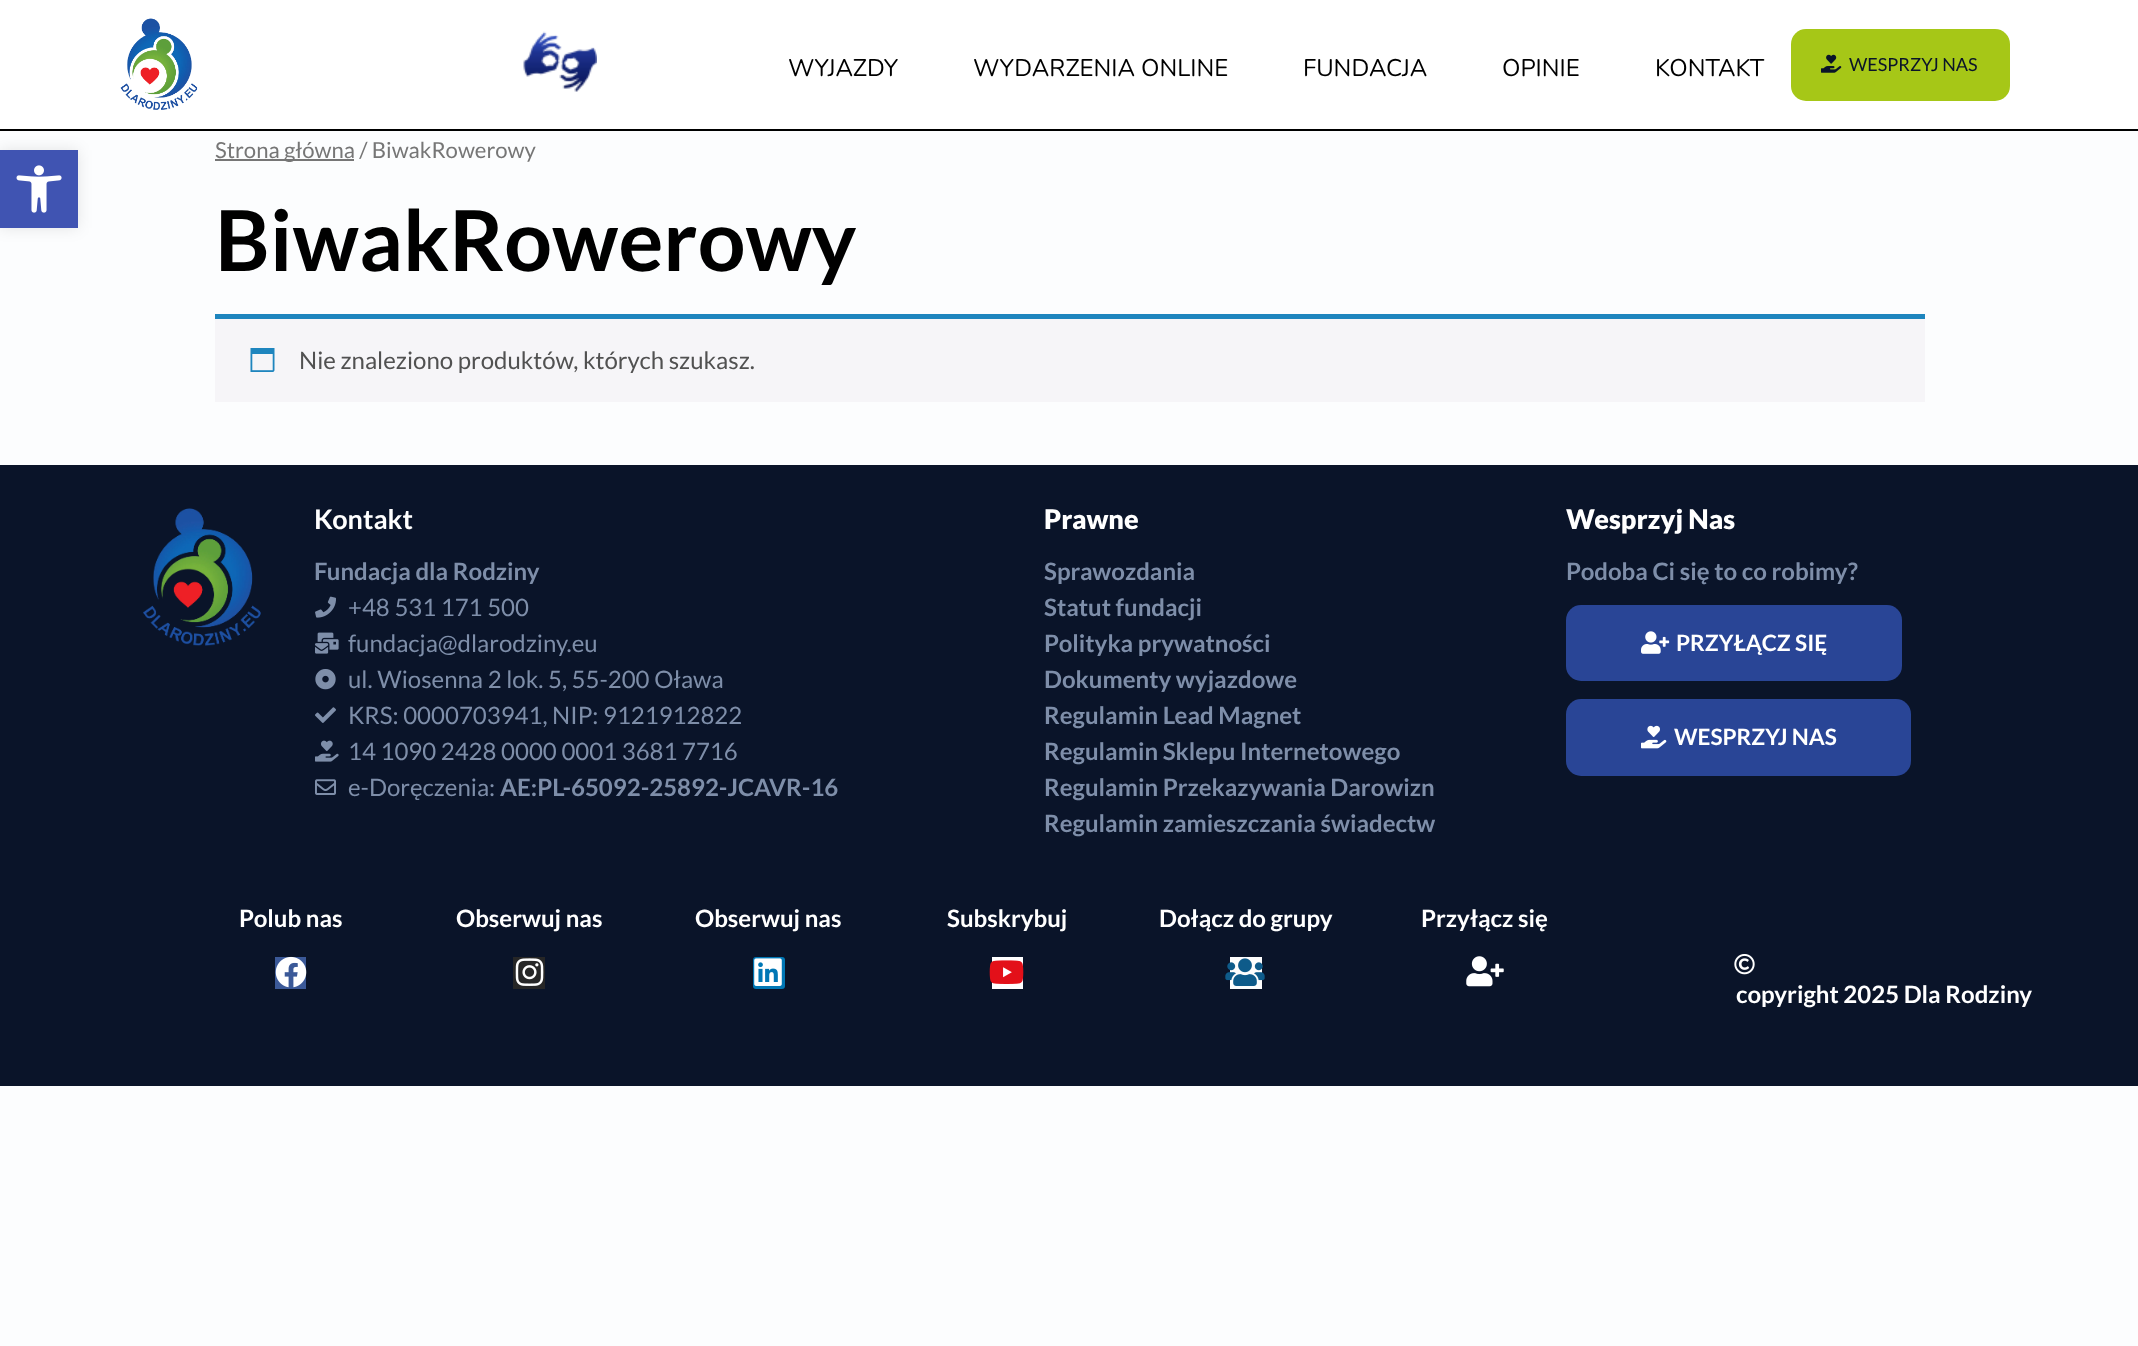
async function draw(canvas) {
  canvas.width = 2138
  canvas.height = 1346
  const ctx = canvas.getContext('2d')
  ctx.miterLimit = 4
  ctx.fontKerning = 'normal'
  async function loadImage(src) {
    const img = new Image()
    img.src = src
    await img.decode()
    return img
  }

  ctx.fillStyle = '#fcfdfe'
  ctx.fillRect(0, 0, 2138, 1346)
  ctx.fillStyle = '#fff'
  ctx.fillRect(0, 0, 2138, 129)
  ctx.fillStyle = '#000'
  ctx.fillRect(0, 129, 2138, 2)
  ctx.drawImage(await loadImage('image0.png'), 120, 18, 78, 92)
  ctx.drawImage(await loadImage('image1.png'), 523, 31, 74, 61)
  ctx.font = '24px Nunito'
  ctx.fillText('WYJAZDY', 788, 76)
  ctx.fillText('WYDARZENIA ONLINE', 973, 76)
  ctx.fillText('FUNDACJA', 1303, 76)
  ctx.fillText('OPINIE', 1502, 76)
  ctx.fillText('KONTAKT', 1655, 76)
  ctx.fillStyle = '#a6c717'
  ctx.beginPath()
  ctx.roundRect(1791, 29, 219, 72, 15)
  ctx.fill()
  ctx.drawImage(await loadImage('image2.png'), 1821, 54, 21, 19)
  ctx.font = '18px Lato'
  ctx.fillStyle = '#0a1429'
  ctx.fillText('WESPRZYJ NAS', 1849, 71)
  ctx.fillStyle = '#0000001a'
  ctx.filter = 'blur(7.5px)'
  ctx.beginPath()
  ctx.rect(0, 150, 78, 78)
  ctx.fill()
  ctx.filter = 'none'
  ctx.fillStyle = '#4054b2'
  ctx.fillRect(0, 150, 78, 78)
  ctx.drawImage(await loadImage('image3.png'), 16, 165, 46, 48)
  ctx.fillStyle = '#767676'
  ctx.fillRect(215, 159, 139, 2)
  ctx.font = '22.1px Lato'
  ctx.fillText('Strona główna / BiwakRowerowy', 215, 158)
  ctx.font = 'bold 84px Lato'
  ctx.fillStyle = '#000'
  ctx.fillText('BiwakRowerowy', 215, 271)
  ctx.fillStyle = '#f6f5f8'
  ctx.fillRect(215, 319, 1710, 83)
  ctx.fillStyle = '#1e85be'
  ctx.fillRect(215, 314, 1710, 5)
  ctx.drawImage(await loadImage('image4.png'), 250, 348, 25, 24)
  ctx.font = '24px Lato'
  ctx.fillStyle = '#515151'
  ctx.fillText('Nie znaleziono produktów, których szukasz.', 299, 369)
  ctx.fillStyle = '#0a1429'
  ctx.fillRect(0, 465, 2138, 621)
  ctx.drawImage(await loadImage('image5.png'), 143, 508, 118, 138)
  ctx.font = 'bold 27px Lato'
  ctx.fillStyle = '#fff'
  ctx.fillText('Kontakt', 314, 529)
  ctx.font = 'bold 24px Lato'
  ctx.fillStyle = '#7e8ea9'
  ctx.fillText('Fundacja dla Rodziny', 314, 580)
  ctx.drawImage(await loadImage('image6.png'), 315, 596, 21, 22)
  ctx.font = '24px Lato'
  ctx.fillText('+48 531 171 500', 348, 616)
  ctx.drawImage(await loadImage('image7.png'), 315, 632, 24, 22)
  ctx.fillText('fundacja@dlarodziny.eu', 348, 652)
  ctx.drawImage(await loadImage('image8.png'), 315, 669, 21, 21)
  ctx.fillText('ul. Wiosenna 2 lok. 5, 55-200 Oława', 348, 688)
  ctx.drawImage(await loadImage('image9.png'), 315, 707, 21, 16)
  ctx.fillText('KRS: 0000703941, NIP: 9121912822', 348, 724)
  ctx.drawImage(await loadImage('image10.png'), 315, 740, 24, 22)
  ctx.fillText('14 1090 2428 0000 0001 3681 7716', 348, 760)
  ctx.drawImage(await loadImage('image11.png'), 315, 779, 21, 16)
  ctx.fillText('e-Doręczenia:', 348, 796)
  ctx.font = 'bold 24px Lato'
  ctx.fillText('AE:PL-65092-25892-JCAVR-16', 500, 796)
  ctx.font = '900 27px Lato'
  ctx.fillStyle = '#fff'
  ctx.fillText('Prawne', 1044, 529)
  ctx.font = 'bold 24px Lato'
  ctx.fillStyle = '#7e8ea9'
  ctx.fillText('Sprawozdania', 1044, 580)
  ctx.fillText('Statut fundacji', 1044, 616)
  ctx.fillText('Polityka prywatności', 1044, 652)
  ctx.fillText('Dokumenty wyjazdowe', 1044, 688)
  ctx.fillText('Regulamin Lead Magnet', 1044, 724)
  ctx.fillText('Regulamin Sklepu Internetowego', 1044, 760)
  ctx.fillText('Regulamin Przekazywania Darowizn', 1044, 796)
  ctx.fillText('Regulamin zamieszczania świadectw', 1044, 832)
  ctx.font = '900 27px Lato'
  ctx.fillStyle = '#fff'
  ctx.fillText('Wesprzyj Nas', 1566, 529)
  ctx.font = 'bold 24px Lato'
  ctx.fillStyle = '#7e8ea9'
  ctx.fillText('Podoba Ci się to co robimy?', 1566, 580)
  ctx.fillStyle = '#294596'
  ctx.beginPath()
  ctx.roundRect(1566, 605, 336, 76, 15)
  ctx.fill()
  ctx.drawImage(await loadImage('image12.png'), 1641, 631, 29, 23)
  ctx.font = 'bold 22.5px Lato'
  ctx.fillStyle = '#fff'
  ctx.fillText('PRZYŁĄCZ SIĘ', 1676, 651)
  ctx.fillStyle = '#294596'
  ctx.beginPath()
  ctx.roundRect(1566, 699, 345, 77, 15)
  ctx.fill()
  ctx.drawImage(await loadImage('image13.png'), 1641, 725, 26, 24)
  ctx.fillStyle = '#fff'
  ctx.fillText('WESPRZYJ NAS', 1674, 745)
  ctx.font = 'bold 24px Lato'
  ctx.fillText('Polub nas', 239, 927)
  ctx.fillStyle = '#3b5998'
  ctx.fillRect(275, 957, 31, 32)
  ctx.drawImage(await loadImage('image14.png'), 275, 956, 32, 32)
  ctx.fillStyle = '#fff'
  ctx.fillText('Obserwuj nas', 456, 927)
  ctx.fillStyle = '#262626'
  ctx.fillRect(513, 957, 32, 32)
  ctx.drawImage(await loadImage('image15.png'), 515, 958, 29, 28)
  ctx.fillStyle = '#fff'
  ctx.fillText('Obserwuj nas', 695, 927)
  ctx.fillStyle = '#0077b5'
  ctx.beginPath()
  ctx.roundRect(753, 957, 32, 32, 3)
  ctx.fill()
  ctx.drawImage(await loadImage('image16.png'), 754, 958, 28, 28)
  ctx.fillStyle = '#fff'
  ctx.fillText('Subskrybuj', 947, 927)
  ctx.fillRect(992, 957, 31, 32)
  ctx.drawImage(await loadImage('image17.png'), 989, 960, 35, 24)
  ctx.fillText('Dołącz do grupy', 1159, 927)
  ctx.fillStyle = '#fdfdfd'
  ctx.fillRect(1230, 957, 32, 32)
  ctx.drawImage(await loadImage('image18.png'), 1225, 958, 40, 28)
  ctx.fillStyle = '#fff'
  ctx.fillText('Przyłącz się', 1421, 927)
  ctx.drawImage(await loadImage('image19.png'), 1466, 956, 38, 31)
  ctx.drawImage(await loadImage('image20.png'), 1734, 954, 21, 21)
  ctx.fillText('copyright 2025 Dla Rodziny', 1736, 1003)
}

draw(document.querySelector('canvas'))
